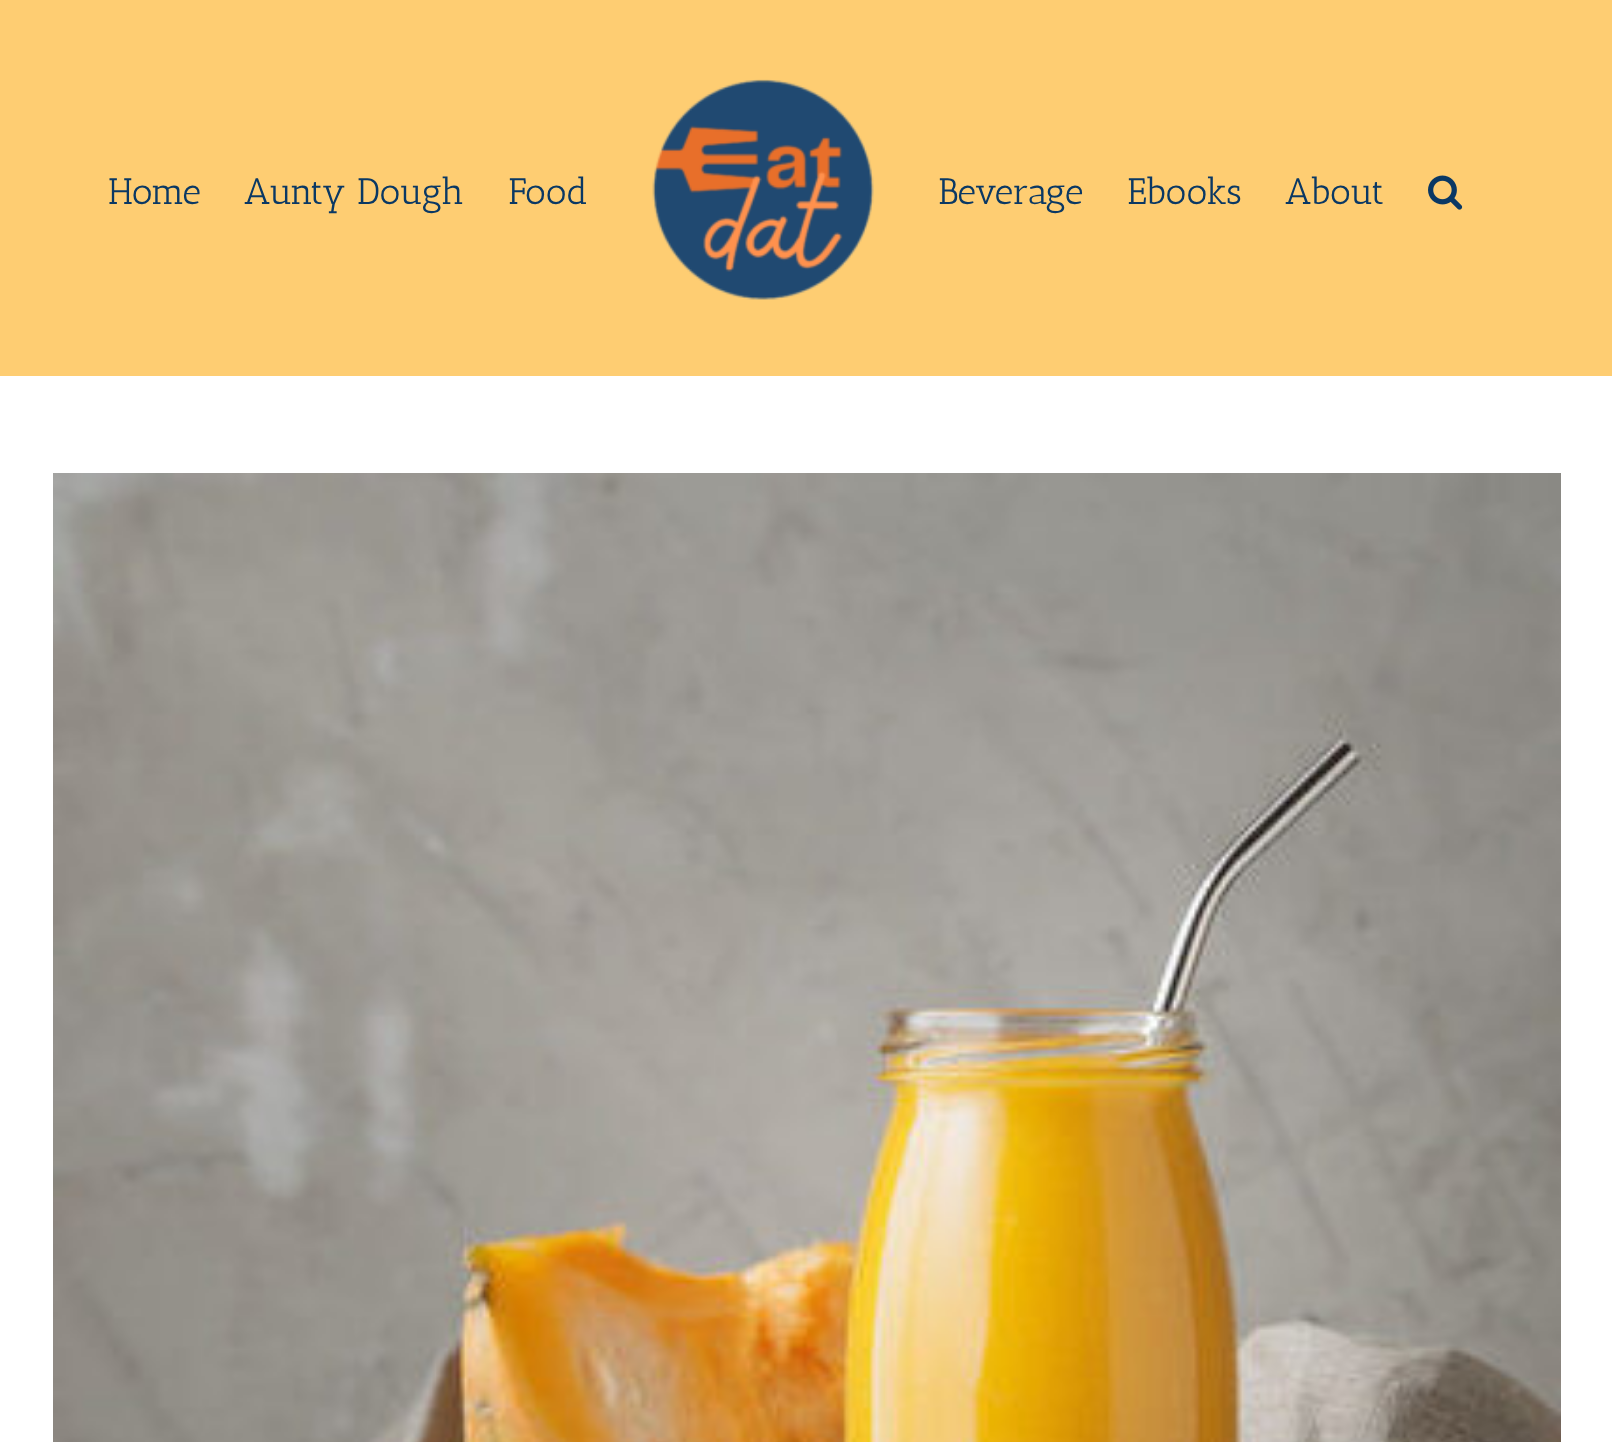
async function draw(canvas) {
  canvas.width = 1612
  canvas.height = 1442
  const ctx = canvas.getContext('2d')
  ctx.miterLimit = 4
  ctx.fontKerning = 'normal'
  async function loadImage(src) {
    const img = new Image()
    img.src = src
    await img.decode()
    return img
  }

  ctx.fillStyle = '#fff'
  ctx.fillRect(0, 0, 1612, 1442)
  ctx.fillStyle = '#fecd72'
  ctx.fillRect(0, 0, 1612, 376)
  ctx.font = '36.75px Antic Slab'
  ctx.fillStyle = '#0a3864'
  ctx.fillText('Home', 108, 204)
  ctx.fillText('Aunty Dough', 244, 204)
  ctx.fillText('Food', 508, 204)
  ctx.drawImage(await loadImage('image0.png'), 652, 79, 222, 221)
  ctx.fillText('Beverage', 938, 204)
  ctx.fillText('Ebooks', 1127, 204)
  ctx.fillText('About', 1285, 204)
  ctx.drawImage(await loadImage('image1.png'), 1428, 175, 35, 35)
  ctx.drawImage(await loadImage('image2.png'), 53, 473, 1508, 969)
}

draw(document.querySelector('canvas'))
